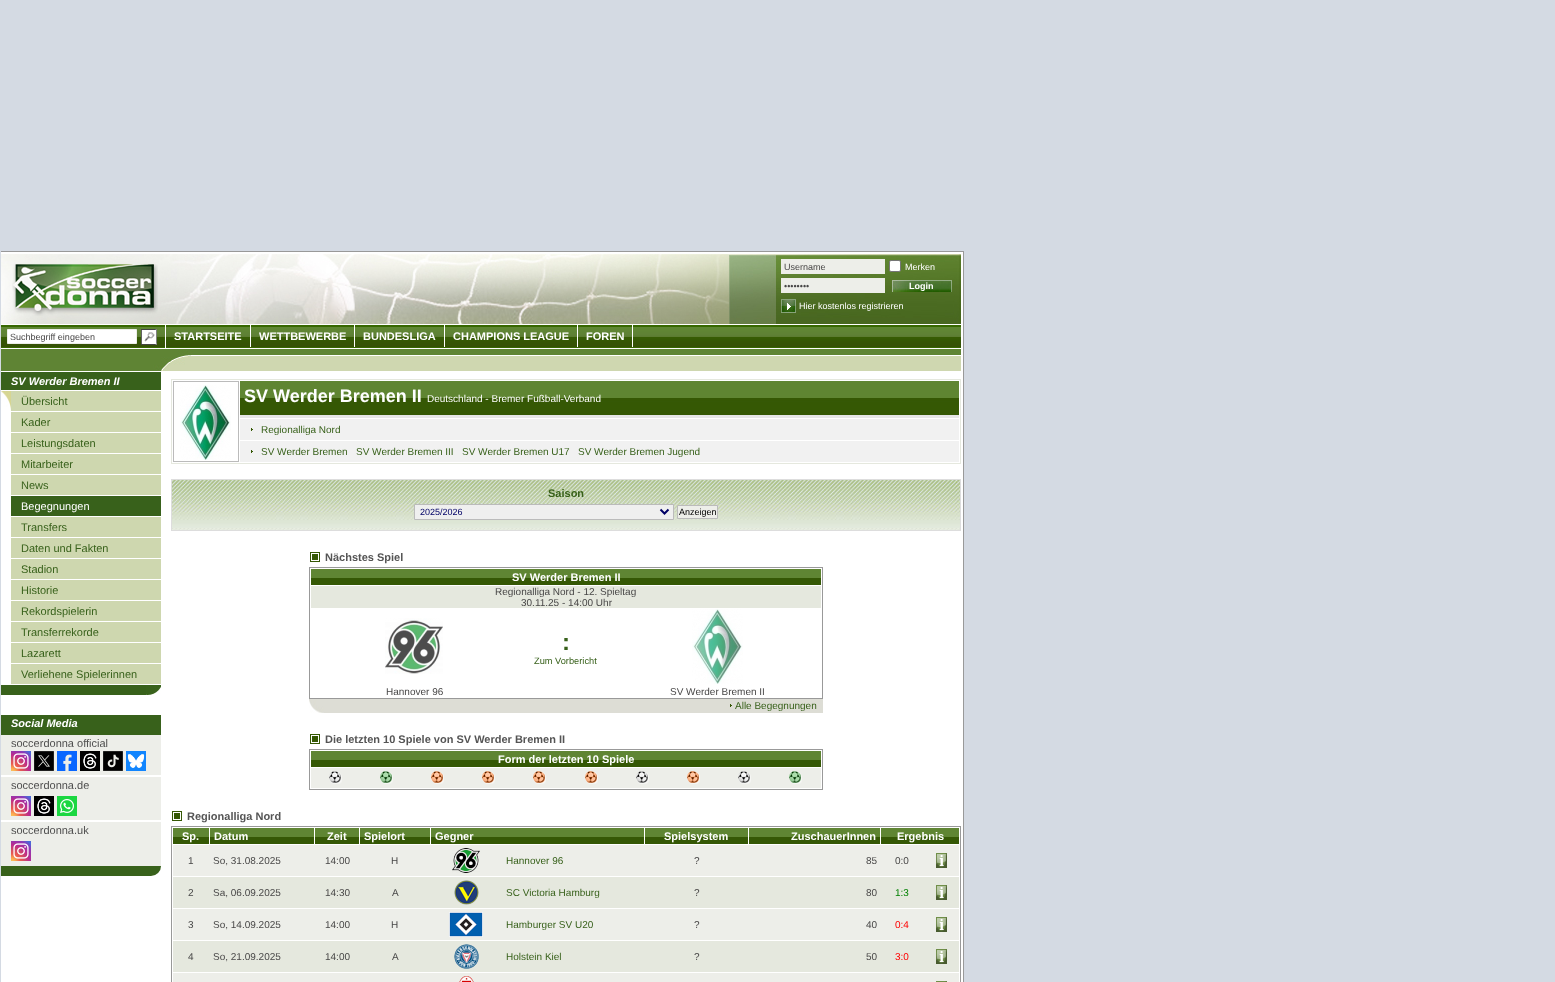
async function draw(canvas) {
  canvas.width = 1555
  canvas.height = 982
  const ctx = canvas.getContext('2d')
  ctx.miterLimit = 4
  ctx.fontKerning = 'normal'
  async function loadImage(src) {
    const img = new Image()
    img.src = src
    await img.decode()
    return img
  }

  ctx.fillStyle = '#d4dae3'
  ctx.fillRect(0, 0, 1555, 982)
  ctx.fillStyle = '#fff'
  ctx.fillRect(1, 252, 962, 730)
  ctx.drawImage(await loadImage('image0.png'), 1, 254, 960, 70)
  ctx.drawImage(await loadImage('image1.png'), 12, 264, 146, 52)
  ctx.fillStyle = '#edeee9'
  ctx.fillRect(781, 259, 104, 15)
  ctx.font = '9px Liberation Sans'
  ctx.fillStyle = '#484747'
  ctx.fillText('Username', 784, 270)
  ctx.fillStyle = '#fff'
  ctx.beginPath()
  ctx.roundRect(889.5, 260.5, 11, 11, 1.5)
  ctx.fill()
  ctx.strokeStyle = '#767676'
  ctx.stroke()
  ctx.fillText('Merken', 905, 270)
  ctx.fillStyle = '#edeee9'
  ctx.fillRect(781, 278, 104, 15)
  ctx.fillStyle = '#484747'
  ctx.fillText('••••••••', 784, 289)
  ctx.drawImage(await loadImage('image2.png'), 892, 280, 60, 12)
  ctx.font = 'bold 9px Liberation Sans'
  ctx.fillStyle = '#fff'
  ctx.fillText('Login', 909, 289)
  ctx.drawImage(await loadImage('image3.png'), 781, 299, 15, 14)
  ctx.font = '9px Liberation Sans'
  ctx.fillText('Hier kostenlos registrieren', 799, 309)
  ctx.drawImage(await loadImage('image4.png'), 1, 325, 960, 23)
  ctx.fillRect(165, 325, 1, 23)
  ctx.beginPath()
  ctx.rect(7.5, 329.5, 129, 14)
  ctx.fill()
  ctx.strokeStyle = '#edeee9'
  ctx.stroke()
  ctx.fillStyle = '#484747'
  ctx.fillText('Suchbegriff eingeben', 10, 340)
  ctx.drawImage(await loadImage('image5.png'), 141, 329, 16, 16)
  ctx.fillStyle = '#fff'
  ctx.fillRect(250, 325, 1, 22)
  ctx.font = 'bold 11px Liberation Sans'
  ctx.fillText('STARTSEITE', 174, 340)
  ctx.fillRect(354, 325, 1, 22)
  ctx.fillText('WETTBEWERBE', 259, 340)
  ctx.fillRect(444, 325, 1, 22)
  ctx.fillText('BUNDESLIGA', 363, 340)
  ctx.fillRect(577, 325, 1, 22)
  ctx.fillText('CHAMPIONS LEAGUE', 453, 340)
  ctx.fillRect(632, 325, 1, 22)
  ctx.fillText('FOREN', 586, 340)
  ctx.drawImage(await loadImage('image6.png'), 1, 349, 960, 22)
  ctx.fillStyle = '#999'
  ctx.fillRect(1, 251, 963, 1)
  ctx.fillRect(963, 251, 1, 731)
  ctx.fillStyle = '#38611b'
  ctx.fillRect(1, 372, 160, 18)
  ctx.font = 'italic bold 11px Liberation Sans'
  ctx.fillStyle = '#fff'
  ctx.fillText('SV Werder Bremen II', 11, 385)
  ctx.fillStyle = '#ced7af'
  ctx.fillRect(11, 391, 150, 20)
  ctx.drawImage(await loadImage('image7.png'), 1, 391, 10, 20)
  ctx.font = '11px Liberation Sans'
  ctx.fillStyle = '#38611b'
  ctx.fillText('Übersicht', 21, 405)
  ctx.fillStyle = '#ced7af'
  ctx.fillRect(11, 412, 150, 20)
  ctx.fillStyle = '#38611b'
  ctx.fillText('Kader', 21, 426)
  ctx.fillStyle = '#ced7af'
  ctx.fillRect(11, 433, 150, 20)
  ctx.fillStyle = '#38611b'
  ctx.fillText('Leistungsdaten', 21, 447)
  ctx.fillStyle = '#ced7af'
  ctx.fillRect(11, 454, 150, 20)
  ctx.fillStyle = '#38611b'
  ctx.fillText('Mitarbeiter', 21, 468)
  ctx.fillStyle = '#ced7af'
  ctx.fillRect(11, 475, 150, 20)
  ctx.fillStyle = '#38611b'
  ctx.fillText('News', 21, 489)
  ctx.fillRect(11, 496, 150, 20)
  ctx.fillStyle = '#fff'
  ctx.fillText('Begegnungen', 21, 510)
  ctx.fillStyle = '#ced7af'
  ctx.fillRect(11, 517, 150, 20)
  ctx.fillStyle = '#38611b'
  ctx.fillText('Transfers', 21, 531)
  ctx.fillStyle = '#ced7af'
  ctx.fillRect(11, 538, 150, 20)
  ctx.fillStyle = '#38611b'
  ctx.fillText('Daten und Fakten', 21, 552)
  ctx.fillStyle = '#ced7af'
  ctx.fillRect(11, 559, 150, 20)
  ctx.fillStyle = '#38611b'
  ctx.fillText('Stadion', 21, 573)
  ctx.fillStyle = '#ced7af'
  ctx.fillRect(11, 580, 150, 20)
  ctx.fillStyle = '#38611b'
  ctx.fillText('Historie', 21, 594)
  ctx.fillStyle = '#ced7af'
  ctx.fillRect(11, 601, 150, 20)
  ctx.fillStyle = '#38611b'
  ctx.fillText('Rekordspielerin', 21, 615)
  ctx.fillStyle = '#ced7af'
  ctx.fillRect(11, 622, 150, 20)
  ctx.fillStyle = '#38611b'
  ctx.fillText('Transferrekorde', 21, 636)
  ctx.fillStyle = '#ced7af'
  ctx.fillRect(11, 643, 150, 20)
  ctx.fillStyle = '#38611b'
  ctx.fillText('Lazarett', 21, 657)
  ctx.fillStyle = '#ced7af'
  ctx.fillRect(11, 664, 150, 20)
  ctx.fillStyle = '#38611b'
  ctx.fillText('Verliehene Spielerinnen', 21, 678)
  ctx.fillRect(1, 685, 145, 10)
  ctx.drawImage(await loadImage('image8.png'), 146, 685, 15, 10)
  ctx.fillRect(1, 715, 160, 20)
  ctx.font = 'italic bold 11px Liberation Sans'
  ctx.fillStyle = '#fff'
  ctx.fillText('Social Media', 11, 727)
  ctx.fillStyle = '#edeee9'
  ctx.fillRect(1, 735, 160, 40)
  ctx.font = '11px Liberation Sans'
  ctx.fillStyle = '#4f4f4f'
  ctx.fillText('soccerdonna official', 11, 747)
  ctx.drawImage(await loadImage('image9.png'), 11, 751, 20, 20)
  ctx.drawImage(await loadImage('image10.png'), 34, 751, 20, 20)
  ctx.drawImage(await loadImage('image11.png'), 57, 751, 20, 20)
  ctx.drawImage(await loadImage('image12.png'), 80, 751, 20, 20)
  ctx.drawImage(await loadImage('image13.png'), 103, 751, 20, 20)
  ctx.drawImage(await loadImage('image14.png'), 126, 751, 20, 20)
  ctx.fillStyle = '#edeee9'
  ctx.fillRect(1, 777, 160, 43)
  ctx.fillStyle = '#4f4f4f'
  ctx.fillText('soccerdonna.de', 11, 789)
  ctx.drawImage(await loadImage('image9.png'), 11, 796, 20, 20)
  ctx.drawImage(await loadImage('image15.png'), 34, 796, 20, 20)
  ctx.drawImage(await loadImage('image16.png'), 57, 796, 20, 20)
  ctx.fillStyle = '#edeee9'
  ctx.fillRect(1, 822, 160, 44)
  ctx.fillStyle = '#4f4f4f'
  ctx.fillText('soccerdonna.uk', 11, 834)
  ctx.drawImage(await loadImage('image9.png'), 11, 841, 20, 20)
  ctx.fillStyle = '#38611b'
  ctx.beginPath()
  ctx.roundRect(1, 866, 160, 10, [0, 0, 10, 0])
  ctx.fill()
  ctx.strokeStyle = '#e5e8de'
  ctx.strokeRect(171.5, 379.5, 789, 84)
  ctx.strokeStyle = '#bbb'
  ctx.strokeRect(173.5, 381.5, 65, 80)
  ctx.drawImage(await loadImage('image17.png'), 180, 385, 51, 75)
  ctx.fillStyle = '#e6e6e6'
  ctx.fillRect(240, 415, 719, 3)
  ctx.drawImage(await loadImage('image18.png'), 240, 381, 719, 34)
  ctx.font = 'bold 18px Liberation Sans'
  ctx.fillStyle = '#fff'
  ctx.fillText('SV Werder Bremen II', 244, 402)
  ctx.font = '10px Liberation Sans'
  ctx.fillText('Deutschland - Bremer Fußball-Verband', 427, 402)
  ctx.fillStyle = '#f1f1f1'
  ctx.fillRect(240, 419, 719, 21)
  ctx.drawImage(await loadImage('image19.png'), 251, 428, 2, 3)
  ctx.fillStyle = '#38611b'
  ctx.fillText('Regionalliga Nord', 261, 433)
  ctx.fillStyle = '#f1f1f1'
  ctx.fillRect(240, 441, 719, 21)
  ctx.drawImage(await loadImage('image19.png'), 251, 450, 2, 3)
  ctx.fillStyle = '#38611b'
  ctx.fillText('SV Werder Bremen', 261, 455)
  ctx.fillText('SV Werder Bremen III', 356, 455)
  ctx.fillText('SV Werder Bremen U17', 462, 455)
  ctx.fillText('SV Werder Bremen Jugend', 578, 455)
  ctx.drawImage(await loadImage('image20.png'), 172, 480, 788, 50)
  ctx.strokeStyle = '#ddd'
  ctx.strokeRect(171.5, 479.5, 789, 51)
  ctx.font = 'bold 11px Liberation Sans'
  ctx.fillText('Saison', 548, 497)
  ctx.fillStyle = '#efefef'
  ctx.beginPath()
  ctx.rect(414.5, 504.5, 259, 15)
  ctx.fill()
  ctx.strokeStyle = '#bbb'
  ctx.stroke()
  ctx.beginPath()
  ctx.moveTo(660.5, 509.5)
  ctx.lineTo(664.5, 513.5)
  ctx.lineTo(668.5, 509.5)
  ctx.strokeStyle = '#006'
  ctx.lineWidth = 2
  ctx.stroke()
  ctx.font = '9px Liberation Sans'
  ctx.fillStyle = '#006'
  ctx.fillText('2025/2026', 420, 515)
  ctx.fillStyle = '#edeee9'
  ctx.beginPath()
  ctx.rect(677.5, 505.5, 40, 13)
  ctx.fill()
  ctx.strokeStyle = '#bbb'
  ctx.lineWidth = 1
  ctx.stroke()
  ctx.fillStyle = '#000'
  ctx.fillText('Anzeigen', 679, 515)
  ctx.drawImage(await loadImage('image21.png'), 310, 552, 10, 10)
  ctx.font = 'bold 11px Liberation Sans'
  ctx.fillStyle = '#555'
  ctx.fillText('Nächstes Spiel', 325, 561)
  ctx.strokeStyle = '#999'
  ctx.strokeRect(309.5, 567.5, 513, 131)
  ctx.drawImage(await loadImage('image22.png'), 311, 569, 510, 16)
  ctx.fillStyle = '#fff'
  ctx.fillText('SV Werder Bremen II', 512, 581)
  ctx.fillStyle = '#e5e8de'
  ctx.fillRect(311, 586, 510, 22)
  ctx.font = '10px Liberation Sans'
  ctx.fillStyle = '#484747'
  ctx.fillText('Regionalliga Nord - 12. Spieltag', 495, 595)
  ctx.fillText('30.11.25 - 14:00 Uhr', 521, 606)
  ctx.drawImage(await loadImage('image23.png'), 385, 618, 58, 56)
  ctx.font = 'bold 24px Liberation Sans'
  ctx.fillStyle = '#38611b'
  ctx.fillText(':', 562, 650)
  ctx.font = '9.25px Liberation Sans'
  ctx.fillText('Zum Vorbericht', 534, 664)
  ctx.drawImage(await loadImage('image24.png'), 692, 609, 51, 75)
  ctx.font = '10px Liberation Sans'
  ctx.fillStyle = '#484747'
  ctx.fillText('Hannover 96', 386, 695)
  ctx.fillText('SV Werder Bremen II', 670, 695)
  ctx.fillStyle = '#ddddd5'
  ctx.fillRect(309, 699, 514, 14)
  ctx.drawImage(await loadImage('image25.png'), 309, 700, 15, 13)
  ctx.drawImage(await loadImage('image26.png'), 730, 704, 2, 3)
  ctx.fillStyle = '#38611b'
  ctx.fillText('Alle Begegnungen', 735, 709)
  ctx.drawImage(await loadImage('image21.png'), 310, 734, 10, 10)
  ctx.font = 'bold 11px Liberation Sans'
  ctx.fillStyle = '#555'
  ctx.fillText('Die letzten 10 Spiele von SV Werder Bremen II', 325, 743)
  ctx.strokeRect(309.5, 749.5, 513, 40)
  ctx.drawImage(await loadImage('image22.png'), 311, 751, 510, 16)
  ctx.fillStyle = '#fff'
  ctx.fillText('Form der letzten 10 Spiele', 498, 763)
  ctx.fillStyle = '#edeee9'
  ctx.fillRect(311, 768, 510, 20)
  ctx.drawImage(await loadImage('image27.png'), 329, 771, 13, 13)
  ctx.drawImage(await loadImage('image28.png'), 380, 771, 13, 13)
  ctx.drawImage(await loadImage('image29.png'), 431, 771, 13, 13)
  ctx.drawImage(await loadImage('image29.png'), 482, 771, 13, 13)
  ctx.drawImage(await loadImage('image29.png'), 533, 771, 13, 13)
  ctx.drawImage(await loadImage('image29.png'), 585, 771, 13, 13)
  ctx.drawImage(await loadImage('image27.png'), 636, 771, 13, 13)
  ctx.drawImage(await loadImage('image29.png'), 687, 771, 13, 13)
  ctx.drawImage(await loadImage('image27.png'), 738, 771, 13, 13)
  ctx.drawImage(await loadImage('image28.png'), 789, 771, 13, 13)
  ctx.drawImage(await loadImage('image21.png'), 172, 811, 10, 10)
  ctx.fillStyle = '#555'
  ctx.fillText('Regionalliga Nord', 187, 820)
  ctx.strokeRect(171.5, 826.5, 789, 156)
  ctx.drawImage(await loadImage('image30.png'), 173, 828, 36, 16)
  ctx.fillStyle = '#fff'
  ctx.fillText('Sp.', 182, 840)
  ctx.drawImage(await loadImage('image31.png'), 210, 828, 104, 16)
  ctx.fillText('Datum', 214, 840)
  ctx.drawImage(await loadImage('image32.png'), 315, 828, 44, 16)
  ctx.fillText('Zeit', 327, 840)
  ctx.drawImage(await loadImage('image33.png'), 360, 828, 70, 16)
  ctx.fillText('Spielort', 364, 840)
  ctx.drawImage(await loadImage('image34.png'), 431, 828, 213, 16)
  ctx.fillText('Gegner', 435, 840)
  ctx.drawImage(await loadImage('image35.png'), 645, 828, 103, 16)
  ctx.fillText('Spielsystem', 664, 840)
  ctx.drawImage(await loadImage('image36.png'), 749, 828, 131, 16)
  ctx.fillText('ZuschauerInnen', 791, 840)
  ctx.drawImage(await loadImage('image37.png'), 881, 828, 78, 16)
  ctx.fillText('Ergebnis', 897, 840)
  ctx.fillStyle = '#edeee9'
  ctx.fillRect(173, 845, 786, 31)
  ctx.font = '10px Liberation Sans'
  ctx.fillStyle = '#484747'
  ctx.fillText('1', 188, 864)
  ctx.fillText('So, 31.08.2025', 213, 864)
  ctx.fillText('14:00', 325, 864)
  ctx.fillText('H', 391, 864)
  ctx.drawImage(await loadImage('image38.png'), 452, 848, 28, 25)
  ctx.fillStyle = '#38611b'
  ctx.fillText('Hannover 96', 506, 864)
  ctx.fillStyle = '#484747'
  ctx.fillText('?', 694, 864)
  ctx.fillText('85', 866, 864)
  ctx.fillText('0:0', 895, 864)
  ctx.drawImage(await loadImage('image39.png'), 936, 853, 11, 15)
  ctx.fillStyle = '#e5e8de'
  ctx.fillRect(173, 877, 786, 31)
  ctx.fillStyle = '#484747'
  ctx.fillText('2', 188, 896)
  ctx.fillText('Sa, 06.09.2025', 213, 896)
  ctx.fillText('14:30', 325, 896)
  ctx.fillText('A', 392, 896)
  ctx.drawImage(await loadImage('image40.png'), 454, 880, 25, 25)
  ctx.fillStyle = '#38611b'
  ctx.fillText('SC Victoria Hamburg', 506, 896)
  ctx.fillStyle = '#484747'
  ctx.fillText('?', 694, 896)
  ctx.fillText('80', 866, 896)
  ctx.fillStyle = '#008000'
  ctx.fillText('1:3', 895, 896)
  ctx.drawImage(await loadImage('image39.png'), 936, 885, 11, 15)
  ctx.fillStyle = '#edeee9'
  ctx.fillRect(173, 909, 786, 31)
  ctx.fillStyle = '#484747'
  ctx.fillText('3', 188, 928)
  ctx.fillText('So, 14.09.2025', 213, 928)
  ctx.fillText('14:00', 325, 928)
  ctx.fillText('H', 391, 928)
  ctx.drawImage(await loadImage('image41.png'), 449, 912, 34, 25)
  ctx.fillStyle = '#38611b'
  ctx.fillText('Hamburger SV U20', 506, 928)
  ctx.fillStyle = '#484747'
  ctx.fillText('?', 694, 928)
  ctx.fillText('40', 866, 928)
  ctx.fillStyle = '#f00'
  ctx.fillText('0:4', 895, 928)
  ctx.drawImage(await loadImage('image39.png'), 936, 917, 11, 15)
  ctx.fillStyle = '#e5e8de'
  ctx.fillRect(173, 941, 786, 31)
  ctx.fillStyle = '#484747'
  ctx.fillText('4', 188, 960)
  ctx.fillText('So, 21.09.2025', 213, 960)
  ctx.fillText('14:00', 325, 960)
  ctx.fillText('A', 392, 960)
  ctx.drawImage(await loadImage('image42.png'), 454, 944, 25, 25)
  ctx.fillStyle = '#38611b'
  ctx.fillText('Holstein Kiel', 506, 960)
  ctx.fillStyle = '#484747'
  ctx.fillText('?', 694, 960)
  ctx.fillText('50', 866, 960)
  ctx.fillStyle = '#f00'
  ctx.fillText('3:0', 895, 960)
  ctx.drawImage(await loadImage('image39.png'), 936, 949, 11, 15)
  ctx.fillStyle = '#edeee9'
  ctx.fillRect(173, 973, 786, 9)
  ctx.drawImage(await loadImage('image43.png'), 459, 976, 15, 6)
  ctx.drawImage(await loadImage('image44.png'), 936, 981, 11, 1)
}

draw(document.querySelector('canvas'))
